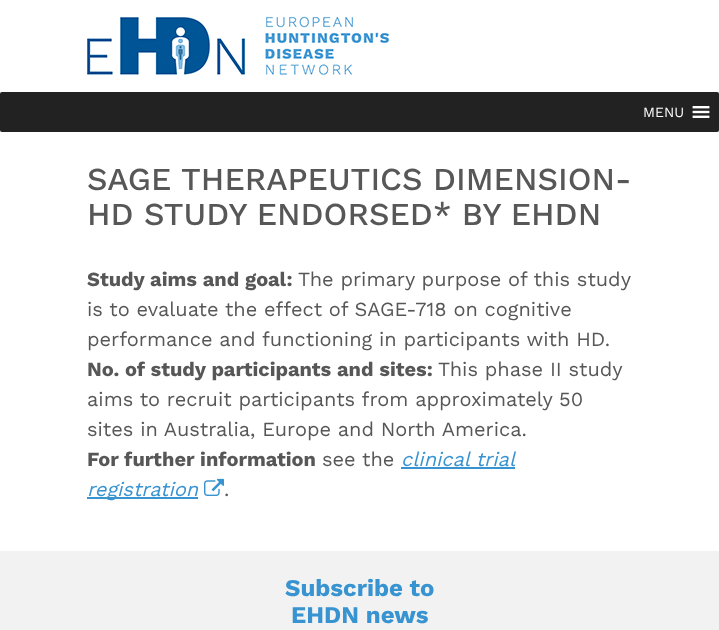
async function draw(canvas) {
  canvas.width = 719
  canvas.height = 630
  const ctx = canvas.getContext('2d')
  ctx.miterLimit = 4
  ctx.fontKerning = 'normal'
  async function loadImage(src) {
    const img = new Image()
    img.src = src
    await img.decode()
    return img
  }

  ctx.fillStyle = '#fff'
  ctx.fillRect(0, 0, 719, 630)
  ctx.drawImage(await loadImage('image0.png'), 87, 16, 302, 59)
  ctx.fillStyle = '#f2f2f2'
  ctx.fillRect(0, 92, 719, 40)
  ctx.fillStyle = '#222'
  ctx.beginPath()
  ctx.roundRect(0, 92, 719, 40, 2)
  ctx.fill()
  ctx.font = '14px Work Sans'
  ctx.fillStyle = '#fff'
  ctx.fillText('MENU', 643, 117)
  ctx.drawImage(await loadImage('image1.png'), 692, 106, 18, 12)
  ctx.font = '500 32px Work Sans'
  ctx.fillStyle = '#575757'
  ctx.fillText('SAGE THERAPEUTICS DIMENSION-', 87, 190)
  ctx.fillText('HD STUDY ENDORSED* BY EHDN', 87, 225)
  ctx.font = 'bold 20px Work Sans'
  ctx.fillText('Study aims and goal:', 87, 286)
  ctx.font = '20px Work Sans'
  ctx.fillText('The primary purpose of this study', 298, 286)
  ctx.fillText('is to evaluate the effect of SAGE-718 on cognitive', 87, 316)
  ctx.fillText('performance and functioning in participants with HD.', 87, 346)
  ctx.font = 'bold 20px Work Sans'
  ctx.fillText('No. of study participants and sites:', 87, 376)
  ctx.font = '20px Work Sans'
  ctx.fillText('This phase II study', 438, 376)
  ctx.fillText('aims to recruit participants from approximately 50', 87, 406)
  ctx.fillText('sites in Australia, Europe and North America.', 87, 436)
  ctx.font = 'bold 20px Work Sans'
  ctx.fillText('For further information', 87, 466)
  ctx.font = 'italic 20px Work Sans'
  ctx.fillStyle = '#3893d1'
  ctx.fillText('clinical trial', 401, 466)
  ctx.fillRect(401, 467, 114, 2)
  ctx.fillRect(87, 497, 111, 2)
  ctx.fillText('registration', 87, 496)
  ctx.drawImage(await loadImage('image2.png'), 204, 478, 20, 18)
  ctx.font = '20px Work Sans'
  ctx.fillStyle = '#575757'
  ctx.fillText('see the', 322, 466)
  ctx.fillText('.', 224, 496)
  ctx.fillStyle = '#f2f2f2'
  ctx.fillRect(0, 551, 719, 79)
  ctx.font = 'bold 24px Work Sans'
  ctx.fillStyle = '#3893d1'
  ctx.fillText('Subscribe to', 285, 596)
  ctx.fillText('EHDN news', 291, 623)
}

draw(document.querySelector('canvas'))
